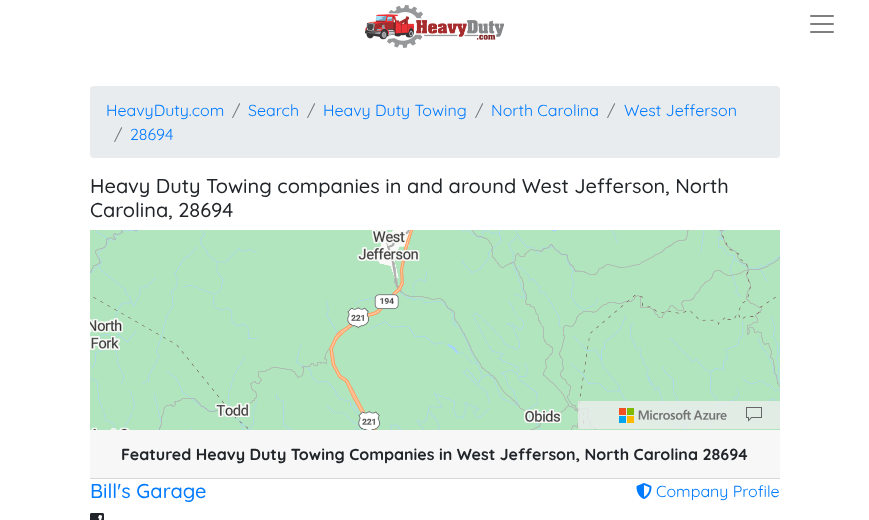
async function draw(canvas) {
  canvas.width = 869
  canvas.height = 520
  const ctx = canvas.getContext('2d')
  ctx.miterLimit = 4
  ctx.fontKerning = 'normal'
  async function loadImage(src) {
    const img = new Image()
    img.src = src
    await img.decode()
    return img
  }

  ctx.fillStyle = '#fff'
  ctx.fillRect(0, 0, 869, 520)
  ctx.drawImage(await loadImage('image0.png'), 365, 5, 139, 43)
  ctx.drawImage(await loadImage('image1.png'), 810, 15, 24, 18)
  ctx.fillStyle = '#e9ecef'
  ctx.beginPath()
  ctx.roundRect(90, 86, 690, 72, 4)
  ctx.fill()
  ctx.font = '16px Quicksand'
  ctx.fillStyle = '#007bff'
  ctx.fillText('HeavyDuty.com', 106, 116)
  ctx.fillStyle = '#6c757d'
  ctx.fillText('/', 232, 116)
  ctx.fillStyle = '#007bff'
  ctx.fillText('Search', 248, 116)
  ctx.fillStyle = '#6c757d'
  ctx.fillText('/', 307, 116)
  ctx.fillStyle = '#007bff'
  ctx.fillText('Heavy Duty Towing', 323, 116)
  ctx.fillStyle = '#6c757d'
  ctx.fillText('/', 475, 116)
  ctx.fillStyle = '#007bff'
  ctx.fillText('North Carolina', 491, 116)
  ctx.fillStyle = '#6c757d'
  ctx.fillText('/', 607, 116)
  ctx.fillStyle = '#007bff'
  ctx.fillText('West Jefferson', 624, 116)
  ctx.fillStyle = '#6c757d'
  ctx.fillText('/', 114, 140)
  ctx.fillStyle = '#007bff'
  ctx.fillText('28694', 130, 140)
  ctx.font = '500 20px Quicksand'
  ctx.fillStyle = '#212529'
  ctx.fillText('Heavy Duty Towing companies in and around West Jefferson, North', 90, 193)
  ctx.fillText('Carolina, 28694', 90, 217)
  ctx.drawImage(await loadImage('image2.png'), 90, 230, 690, 200)
  ctx.fillStyle = '#eeeeeecc'
  ctx.fillRect(578, 401, 202, 28)
  ctx.drawImage(await loadImage('image3.png'), 619, 408, 108, 15)
  ctx.drawImage(await loadImage('image4.png'), 746, 407, 16, 15)
  ctx.fillStyle = '#f7f7f7'
  ctx.fillRect(90, 430, 690, 48)
  ctx.fillStyle = '#d8d8d8'
  ctx.fillRect(90, 478, 690, 1)
  ctx.font = 'bold 16px Quicksand'
  ctx.fillStyle = '#212529'
  ctx.fillText('Featured Heavy Duty Towing Companies in West Jefferson, North Carolina 28694', 121, 460)
  ctx.font = '500 20px Quicksand'
  ctx.fillStyle = '#007bff'
  ctx.fillText('Bill\'s Garage', 90, 498)
  ctx.drawImage(await loadImage('image5.png'), 90, 513, 14, 7)
  ctx.drawImage(await loadImage('image6.png'), 636, 483, 16, 16)
  ctx.font = '16px Quicksand'
  ctx.fillText('Company Profile', 656, 497)
}

draw(document.querySelector('canvas'))
